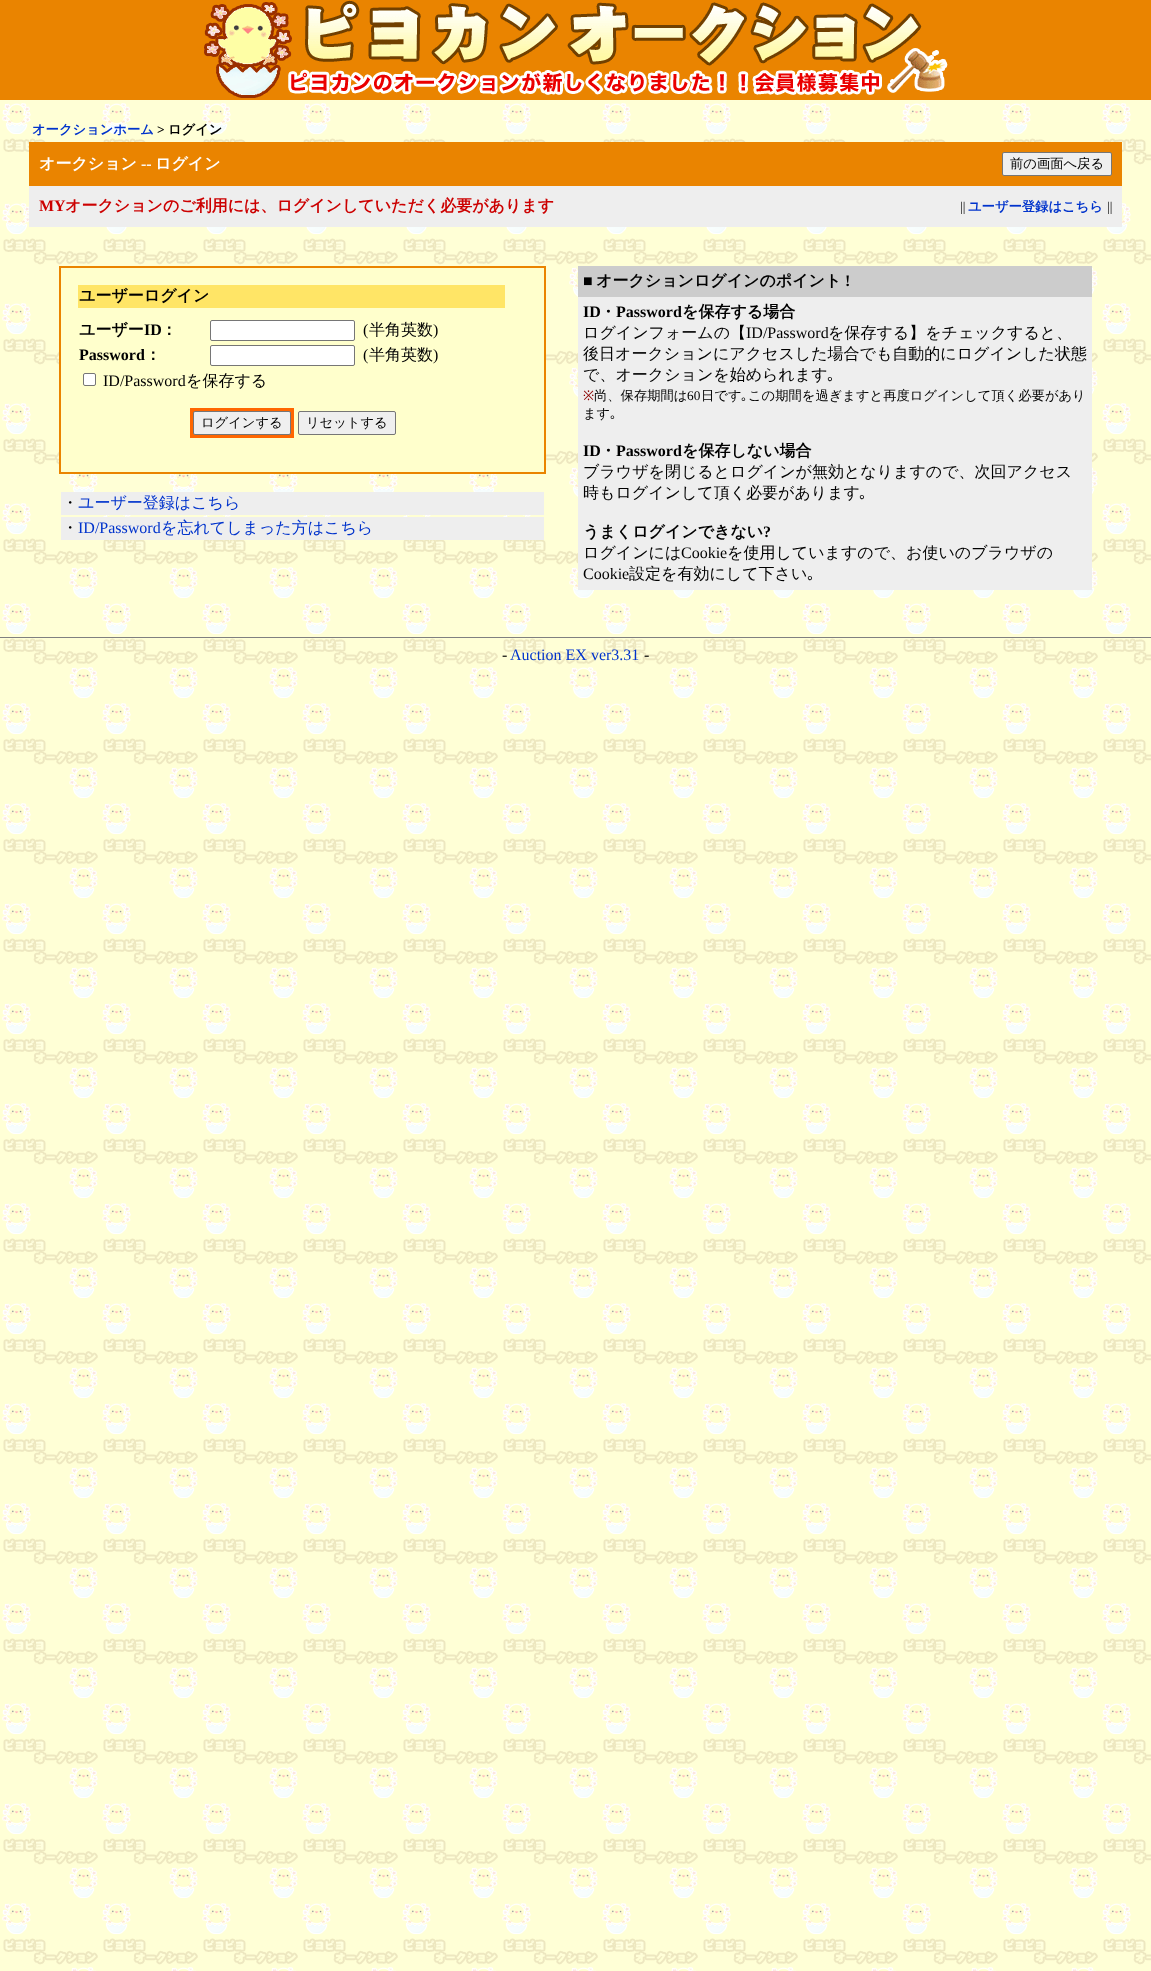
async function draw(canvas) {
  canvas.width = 1151
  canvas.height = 1971
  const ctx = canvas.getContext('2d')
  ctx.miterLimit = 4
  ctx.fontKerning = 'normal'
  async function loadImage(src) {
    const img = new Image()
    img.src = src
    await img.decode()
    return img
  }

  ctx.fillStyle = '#fff'
  ctx.fillRect(0, 0, 1151, 1971)
  ctx.drawImage(await loadImage('image0.png'), 0, 100, 1151, 1871)
  ctx.fillStyle = '#ea8400'
  ctx.fillRect(0, 0, 1151, 100)
  ctx.drawImage(await loadImage('image1.png'), 204, 0, 744, 98)
  ctx.font = 'bold 13.3px WenQuanYi Zen Hei'
  ctx.fillStyle = '#03c'
  ctx.fillText('オークションホーム', 32, 134)
  ctx.font = 'bold 13.3px Liberation Serif'
  ctx.fillStyle = '#000'
  ctx.fillText('>', 157, 134)
  ctx.font = 'bold 13.3px WenQuanYi Zen Hei'
  ctx.fillText('ログイン', 168, 134)
  ctx.fillStyle = '#ea8400'
  ctx.fillRect(29, 142, 1093, 44)
  ctx.font = 'bold 16px WenQuanYi Zen Hei'
  ctx.fillStyle = '#fff'
  ctx.fillText('オークション', 39, 169)
  ctx.font = 'bold 16px Liberation Serif'
  ctx.fillText('--', 141, 169)
  ctx.font = 'bold 16px WenQuanYi Zen Hei'
  ctx.fillText('ログイン', 155, 169)
  ctx.fillStyle = '#efefef'
  ctx.beginPath()
  ctx.roundRect(1002.5, 152.5, 109, 23, 1.5)
  ctx.fill()
  ctx.strokeStyle = '#767676'
  ctx.stroke()
  ctx.font = '500 13.3px WenQuanYi Zen Hei'
  ctx.fillStyle = '#000'
  ctx.fillText('前の画面へ戻る', 1010, 168)
  ctx.fillStyle = '#eee'
  ctx.fillRect(29, 186, 1093, 41)
  ctx.font = 'bold 16px Liberation Serif'
  ctx.fillStyle = '#c00'
  ctx.fillText('MY', 39, 211)
  ctx.font = 'bold 16px WenQuanYi Zen Hei'
  ctx.fillText('オークションのご利用には、ログインしていただく必要があります', 65, 211)
  ctx.font = '13.3px Liberation Serif'
  ctx.fillStyle = '#000'
  ctx.fillText('||', 960, 211)
  ctx.font = 'bold 13.3px WenQuanYi Zen Hei'
  ctx.fillStyle = '#03c'
  ctx.fillText('ユーザー登録はこちら', 968, 211)
  ctx.font = '13.3px Liberation Serif'
  ctx.fillStyle = '#000'
  ctx.fillText('||', 1107, 211)
  ctx.fillStyle = '#ea8400'
  ctx.fillRect(59, 266, 487, 208)
  ctx.fillStyle = '#ffc'
  ctx.fillRect(61, 268, 483, 204)
  ctx.fillStyle = '#ffe566'
  ctx.fillRect(78, 285, 427, 23)
  ctx.font = 'bold 16px WenQuanYi Zen Hei'
  ctx.fillStyle = '#000'
  ctx.fillText('ユーザーログイン', 79, 301)
  ctx.fillText('ユーザー', 79, 335)
  ctx.font = 'bold 16px Liberation Serif'
  ctx.fillText('ID', 144, 335)
  ctx.font = 'bold 16px WenQuanYi Zen Hei'
  ctx.fillText('：', 161, 335)
  ctx.fillStyle = '#fff'
  ctx.beginPath()
  ctx.roundRect(210.5, 320.5, 144, 20, 1.5)
  ctx.fill()
  ctx.stroke()
  ctx.font = '16px Liberation Serif'
  ctx.fillStyle = '#000'
  ctx.fillText('(', 363, 335)
  ctx.font = '500 16px WenQuanYi Zen Hei'
  ctx.fillText('半角英数', 369, 335)
  ctx.font = '16px Liberation Serif'
  ctx.fillText(')', 433, 335)
  ctx.font = 'bold 16px Liberation Serif'
  ctx.fillText('Password', 79, 360)
  ctx.font = 'bold 16px WenQuanYi Zen Hei'
  ctx.fillText('：', 145, 360)
  ctx.fillStyle = '#fff'
  ctx.beginPath()
  ctx.roundRect(210.5, 345.5, 144, 20, 1.5)
  ctx.fill()
  ctx.stroke()
  ctx.font = '16px Liberation Serif'
  ctx.fillStyle = '#000'
  ctx.fillText('(', 363, 360)
  ctx.font = '500 16px WenQuanYi Zen Hei'
  ctx.fillText('半角英数', 369, 360)
  ctx.font = '16px Liberation Serif'
  ctx.fillText(')', 433, 360)
  ctx.fillStyle = '#fff'
  ctx.beginPath()
  ctx.roundRect(83.5, 373.5, 12, 12, 1.5)
  ctx.fill()
  ctx.stroke()
  ctx.fillStyle = '#000'
  ctx.fillText('ID/Password', 103, 386)
  ctx.font = '500 16px WenQuanYi Zen Hei'
  ctx.fillText('を保存する', 186, 386)
  ctx.fillStyle = '#f60'
  ctx.fillRect(190, 408, 104, 30)
  ctx.fillStyle = '#efefef'
  ctx.beginPath()
  ctx.roundRect(193.5, 411.5, 97, 23, 1.5)
  ctx.fill()
  ctx.stroke()
  ctx.font = '500 13.3px WenQuanYi Zen Hei'
  ctx.fillStyle = '#000'
  ctx.fillText('ログインする', 201, 427)
  ctx.fillStyle = '#efefef'
  ctx.beginPath()
  ctx.roundRect(298.5, 411.5, 97, 23, 1.5)
  ctx.fill()
  ctx.stroke()
  ctx.fillStyle = '#000'
  ctx.fillText('リセットする', 306, 427)
  ctx.fillStyle = '#eee'
  ctx.fillRect(61, 492, 483, 23)
  ctx.font = '500 16px WenQuanYi Zen Hei'
  ctx.fillStyle = '#000'
  ctx.fillText('・', 62, 508)
  ctx.fillStyle = '#03c'
  ctx.fillText('ユーザー登録はこちら', 78, 508)
  ctx.fillStyle = '#eee'
  ctx.fillRect(61, 517, 483, 23)
  ctx.fillStyle = '#000'
  ctx.fillText('・', 62, 533)
  ctx.font = '16px Liberation Serif'
  ctx.fillStyle = '#03c'
  ctx.fillText('ID/Password', 78, 533)
  ctx.font = '500 16px WenQuanYi Zen Hei'
  ctx.fillText('を忘れてしまった方はこちら', 161, 533)
  ctx.fillStyle = '#ccc'
  ctx.fillRect(578, 266, 514, 31)
  ctx.font = 'bold 16px Liberation Serif'
  ctx.fillStyle = '#000'
  ctx.fillText('■', 583, 286)
  ctx.font = 'bold 16px WenQuanYi Zen Hei'
  ctx.fillText('オークションログインのポイント', 596, 286)
  ctx.font = 'bold 16px Liberation Serif'
  ctx.fillText('!', 845, 286)
  ctx.fillStyle = '#eee'
  ctx.fillRect(578, 297, 514, 293)
  ctx.fillStyle = '#000'
  ctx.fillText('ID', 583, 317)
  ctx.font = 'bold 16px WenQuanYi Zen Hei'
  ctx.fillText('・', 600, 317)
  ctx.font = 'bold 16px Liberation Serif'
  ctx.fillText('Password', 616, 317)
  ctx.font = 'bold 16px WenQuanYi Zen Hei'
  ctx.fillText('を保存する場合', 682, 317)
  ctx.font = '500 16px WenQuanYi Zen Hei'
  ctx.fillText('ログインフォームの【', 583, 338)
  ctx.font = '16px Liberation Serif'
  ctx.fillText('ID/Password', 746, 338)
  ctx.font = '500 16px WenQuanYi Zen Hei'
  ctx.fillText('を保存する】をチェックすると、', 828, 338)
  ctx.fillText('後日オークションにアクセスした場合でも自動的にログインした状態', 583, 359)
  ctx.fillText('で、オークションを始められます', 583, 380)
  ctx.font = '16px IPAGothic'
  ctx.fillText('｡', 827, 380)
  ctx.font = '13.3px Noto Sans'
  ctx.fillStyle = '#8b0000'
  ctx.fillText('※', 583, 400)
  ctx.font = '500 13.3px WenQuanYi Zen Hei'
  ctx.fillStyle = '#000'
  ctx.fillText('尚、保存期間は', 594, 400)
  ctx.font = '13.3px Liberation Serif'
  ctx.fillText('60', 687, 400)
  ctx.font = '500 13.3px WenQuanYi Zen Hei'
  ctx.fillText('日です', 701, 400)
  ctx.font = '13.3px IPAGothic'
  ctx.fillText('｡', 741, 400)
  ctx.font = '500 13.3px WenQuanYi Zen Hei'
  ctx.fillText('この期間を過ぎますと再度ログインして頂く必要があり', 748, 400)
  ctx.fillText('ます', 583, 418)
  ctx.font = '13.3px IPAGothic'
  ctx.fillText('｡', 610, 418)
  ctx.font = 'bold 16px Liberation Serif'
  ctx.fillText('ID', 583, 456)
  ctx.font = 'bold 16px WenQuanYi Zen Hei'
  ctx.fillText('・', 600, 456)
  ctx.font = 'bold 16px Liberation Serif'
  ctx.fillText('Password', 616, 456)
  ctx.font = 'bold 16px WenQuanYi Zen Hei'
  ctx.fillText('を保存しない場合', 682, 456)
  ctx.font = '500 16px WenQuanYi Zen Hei'
  ctx.fillText('ブラウザを閉じるとログインが無効となりますので、次回アクセス', 583, 477)
  ctx.fillText('時もログインして頂く必要があります', 583, 498)
  ctx.font = '16px IPAGothic'
  ctx.fillText('｡', 859, 498)
  ctx.font = 'bold 16px WenQuanYi Zen Hei'
  ctx.fillText('うまくログインできない', 583, 537)
  ctx.font = 'bold 16px Liberation Serif'
  ctx.fillText('?', 763, 537)
  ctx.font = '500 16px WenQuanYi Zen Hei'
  ctx.fillText('ログインには', 583, 558)
  ctx.font = '16px Liberation Serif'
  ctx.fillText('Cookie', 681, 558)
  ctx.font = '500 16px WenQuanYi Zen Hei'
  ctx.fillText('を使用していますので、お使いのブラウザの', 727, 558)
  ctx.font = '16px Liberation Serif'
  ctx.fillText('Cookie', 583, 579)
  ctx.font = '500 16px WenQuanYi Zen Hei'
  ctx.fillText('設定を有効にして下さい', 629, 579)
  ctx.font = '16px IPAGothic'
  ctx.fillText('｡', 807, 579)
  ctx.fillStyle = '#808080'
  ctx.fillRect(0, 637, 1151, 1)
  ctx.font = '16px Liberation Serif'
  ctx.fillStyle = '#000'
  ctx.fillText('-', 502, 660)
  ctx.fillStyle = '#03c'
  ctx.fillText('Auction EX ver3.31', 510, 660)
  ctx.fillStyle = '#000'
  ctx.fillText('-', 644, 660)
}

draw(document.querySelector('canvas'))
